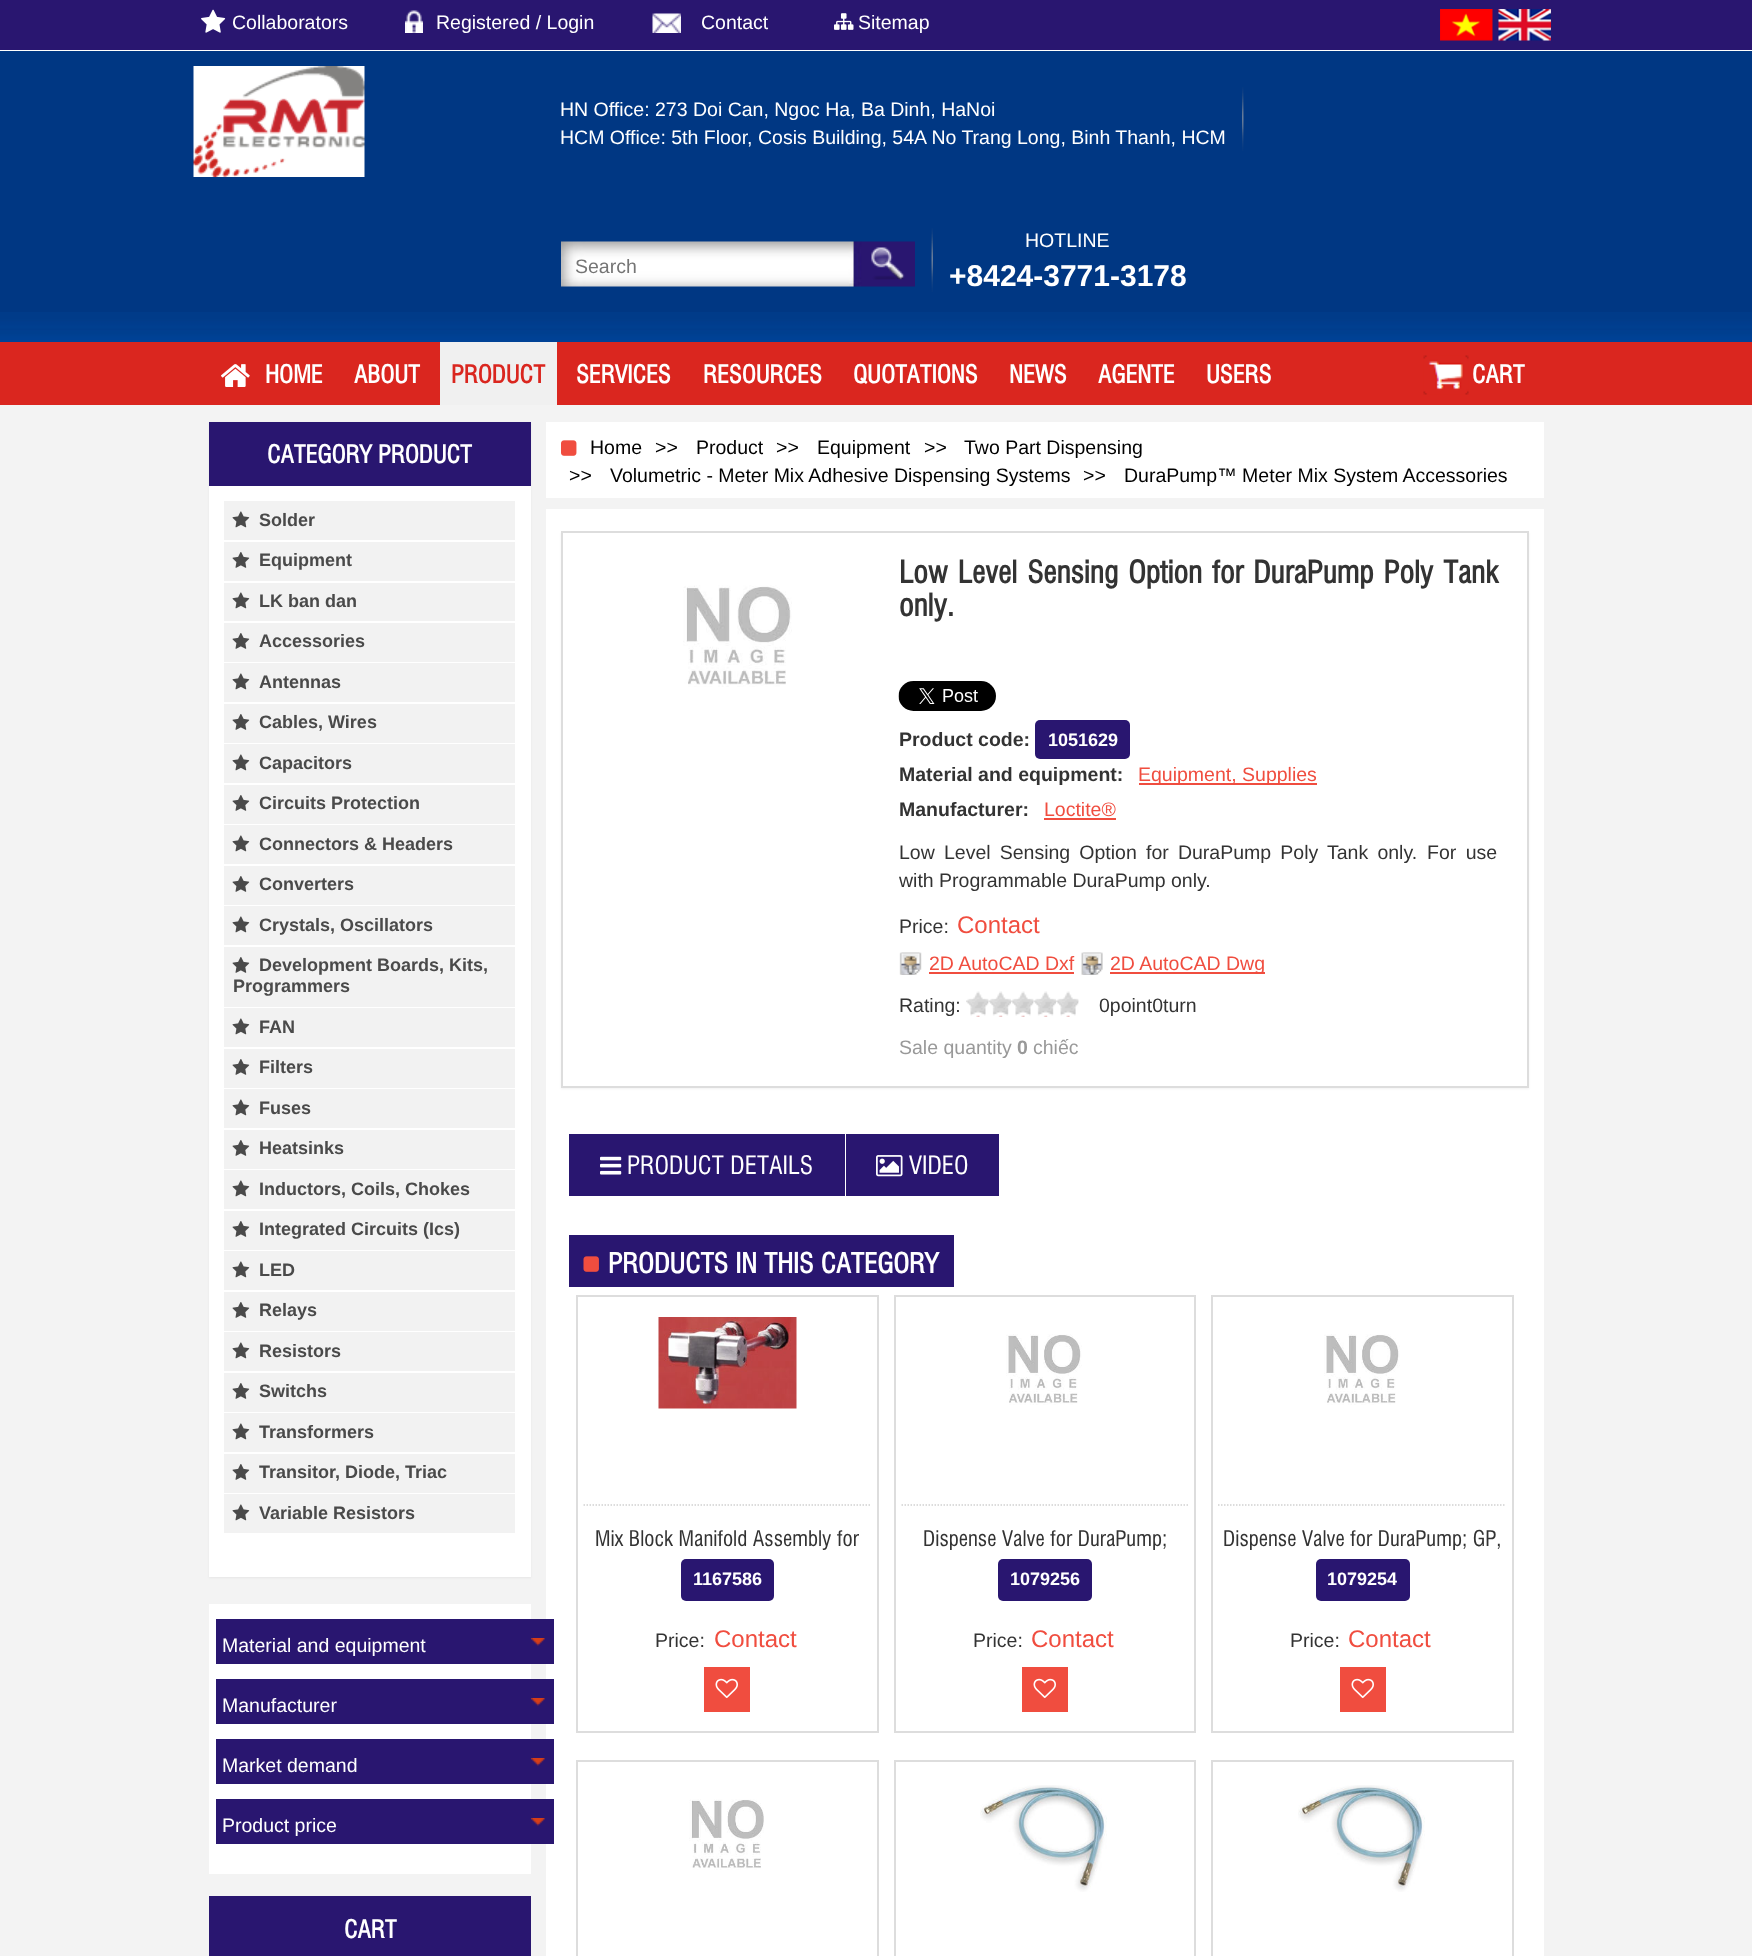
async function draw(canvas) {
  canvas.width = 1752
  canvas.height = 1956
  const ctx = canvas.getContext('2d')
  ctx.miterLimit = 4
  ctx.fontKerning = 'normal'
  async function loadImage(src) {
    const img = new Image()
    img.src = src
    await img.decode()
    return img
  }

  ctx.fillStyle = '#f3f3f3'
  ctx.fillRect(0, 0, 1752, 1956)
  ctx.fillStyle = '#291670'
  ctx.fillRect(0, 0, 1752, 50)
  ctx.fillStyle = '#fff'
  ctx.fillRect(0, 50, 1752, 1)
  ctx.drawImage(await loadImage('image0.png'), 201, 9, 25, 24)
  ctx.font = '19.5px Liberation Sans'
  ctx.fillText('Collaborators', 232, 29)
  ctx.drawImage(await loadImage('image1.png'), 405, 10, 18, 23)
  ctx.fillText('Registered / Login', 436, 29)
  ctx.drawImage(await loadImage('image2.png'), 652, 13, 29, 20)
  ctx.fillText('Contact', 701, 29)
  ctx.drawImage(await loadImage('image3.png'), 834, 13, 20, 17)
  ctx.fillText('Sitemap', 858, 29)
  ctx.drawImage(await loadImage('image4.png'), 1440, 9, 53, 32)
  ctx.drawImage(await loadImage('image5.png'), 1498, 9, 53, 32)
  ctx.fillStyle = '#003783'
  ctx.fillRect(0, 51, 1752, 261)
  ctx.drawImage(await loadImage('image6.png'), 0, 312, 1752, 30)
  ctx.drawImage(await loadImage('image7.png'), 193, 66, 172, 111)
  ctx.drawImage(await loadImage('image8.png'), 1242, 87, 2, 64)
  ctx.fillStyle = '#fff'
  ctx.fillText('HN Office: 273 Doi Can, Ngoc Ha, Ba Dinh, HaNoi', 560, 116)
  ctx.fillText('HCM Office: 5th Floor, Cosis Building, 54A No Trang Long, Binh Thanh, HCM', 560, 144)
  ctx.drawImage(await loadImage('image9.png'), 931, 228, 2, 64)
  ctx.drawImage(await loadImage('image10.png'), 561, 241, 354, 46)
  ctx.fillStyle = '#757575'
  ctx.fillText('Search', 575, 273)
  ctx.drawImage(await loadImage('image11.png'), 871, 247, 34, 33)
  ctx.fillStyle = '#fff'
  ctx.fillText('HOTLINE', 1025, 247)
  ctx.font = 'bold 30px Liberation Sans'
  ctx.fillText('+8424-3771-3178', 949, 286)
  ctx.fillStyle = '#da261f'
  ctx.fillRect(0, 342, 1752, 63)
  ctx.drawImage(await loadImage('image12.png'), 221, 364, 29, 23)
  ctx.font = 'bold 24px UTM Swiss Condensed'
  ctx.fillStyle = '#fff'
  ctx.fillText('HOME', 265, 383)
  ctx.fillText('ABOUT', 354, 383)
  ctx.fillStyle = '#f0f0f0'
  ctx.fillRect(440, 342, 117, 63)
  ctx.fillStyle = '#da261f'
  ctx.fillText('PRODUCT', 451, 383)
  ctx.fillStyle = '#fff'
  ctx.fillText('SERVICES', 576, 383)
  ctx.fillText('RESOURCES', 703, 383)
  ctx.fillText('QUOTATIONS', 853, 383)
  ctx.fillText('NEWS', 1009, 383)
  ctx.fillText('AGENTE', 1098, 383)
  ctx.fillText('USERS', 1206, 383)
  ctx.drawImage(await loadImage('image13.png'), 1423, 355, 46, 40)
  ctx.fillText('CART', 1472, 383)
  ctx.fillStyle = '#0000000d'
  ctx.filter = 'blur(1px)'
  ctx.beginPath()
  ctx.rect(209, 423, 322, 1155)
  ctx.fill()
  ctx.filter = 'none'
  ctx.fillStyle = '#fff'
  ctx.fillRect(209, 486, 322, 1091)
  ctx.fillStyle = '#291670'
  ctx.fillRect(209, 422, 322, 64)
  ctx.fillStyle = '#fff'
  ctx.fillText('CATEGORY PRODUCT', 267, 463)
  ctx.fillStyle = '#f2f2f2'
  ctx.fillRect(224, 501, 291, 39)
  ctx.drawImage(await loadImage('image14.png'), 232, 511, 18, 17)
  ctx.font = 'bold 18px Liberation Sans'
  ctx.fillStyle = '#4a4a4a'
  ctx.fillText('Solder', 259, 526)
  ctx.fillStyle = '#f2f2f2'
  ctx.fillRect(224, 542, 291, 39)
  ctx.drawImage(await loadImage('image15.png'), 232, 552, 18, 16)
  ctx.fillStyle = '#4a4a4a'
  ctx.fillText('Equipment', 259, 566)
  ctx.fillStyle = '#f2f2f2'
  ctx.fillRect(224, 583, 291, 38)
  ctx.drawImage(await loadImage('image14.png'), 232, 592, 18, 17)
  ctx.fillStyle = '#4a4a4a'
  ctx.fillText('LK ban dan', 259, 607)
  ctx.fillStyle = '#f2f2f2'
  ctx.fillRect(224, 623, 291, 39)
  ctx.drawImage(await loadImage('image15.png'), 232, 633, 18, 16)
  ctx.fillStyle = '#4a4a4a'
  ctx.fillText('Accessories', 259, 647)
  ctx.fillStyle = '#f2f2f2'
  ctx.fillRect(224, 663, 291, 39)
  ctx.drawImage(await loadImage('image14.png'), 232, 673, 18, 17)
  ctx.fillStyle = '#4a4a4a'
  ctx.fillText('Antennas', 259, 688)
  ctx.fillStyle = '#f2f2f2'
  ctx.fillRect(224, 704, 291, 39)
  ctx.drawImage(await loadImage('image15.png'), 232, 714, 18, 16)
  ctx.fillStyle = '#4a4a4a'
  ctx.fillText('Cables, Wires', 259, 728)
  ctx.fillStyle = '#f2f2f2'
  ctx.fillRect(224, 744, 291, 39)
  ctx.drawImage(await loadImage('image14.png'), 232, 754, 18, 17)
  ctx.fillStyle = '#4a4a4a'
  ctx.fillText('Capacitors', 259, 769)
  ctx.fillStyle = '#f2f2f2'
  ctx.fillRect(224, 785, 291, 39)
  ctx.drawImage(await loadImage('image15.png'), 232, 795, 18, 16)
  ctx.fillStyle = '#4a4a4a'
  ctx.fillText('Circuits Protection', 259, 809)
  ctx.fillStyle = '#f2f2f2'
  ctx.fillRect(224, 825, 291, 39)
  ctx.drawImage(await loadImage('image14.png'), 232, 835, 18, 17)
  ctx.fillStyle = '#4a4a4a'
  ctx.fillText('Connectors & Headers', 259, 850)
  ctx.fillStyle = '#f2f2f2'
  ctx.fillRect(224, 866, 291, 39)
  ctx.drawImage(await loadImage('image15.png'), 232, 876, 18, 16)
  ctx.fillStyle = '#4a4a4a'
  ctx.fillText('Converters', 259, 890)
  ctx.fillStyle = '#f2f2f2'
  ctx.fillRect(224, 906, 291, 39)
  ctx.drawImage(await loadImage('image14.png'), 232, 916, 18, 17)
  ctx.fillStyle = '#4a4a4a'
  ctx.fillText('Crystals, Oscillators', 259, 931)
  ctx.fillStyle = '#f2f2f2'
  ctx.fillRect(224, 947, 291, 60)
  ctx.drawImage(await loadImage('image15.png'), 232, 957, 18, 16)
  ctx.fillStyle = '#4a4a4a'
  ctx.fillText('Development Boards, Kits,', 259, 971)
  ctx.fillText('Programmers', 233, 992)
  ctx.fillStyle = '#f2f2f2'
  ctx.fillRect(224, 1008, 291, 39)
  ctx.drawImage(await loadImage('image14.png'), 232, 1018, 18, 17)
  ctx.fillStyle = '#4a4a4a'
  ctx.fillText('FAN', 259, 1033)
  ctx.fillStyle = '#f2f2f2'
  ctx.fillRect(224, 1049, 291, 39)
  ctx.drawImage(await loadImage('image15.png'), 232, 1059, 18, 16)
  ctx.fillStyle = '#4a4a4a'
  ctx.fillText('Filters', 259, 1073)
  ctx.fillStyle = '#f2f2f2'
  ctx.fillRect(224, 1089, 291, 39)
  ctx.drawImage(await loadImage('image14.png'), 232, 1099, 18, 17)
  ctx.fillStyle = '#4a4a4a'
  ctx.fillText('Fuses', 259, 1114)
  ctx.fillStyle = '#f2f2f2'
  ctx.fillRect(224, 1130, 291, 39)
  ctx.drawImage(await loadImage('image15.png'), 232, 1140, 18, 16)
  ctx.fillStyle = '#4a4a4a'
  ctx.fillText('Heatsinks', 259, 1154)
  ctx.fillStyle = '#f2f2f2'
  ctx.fillRect(224, 1170, 291, 39)
  ctx.drawImage(await loadImage('image14.png'), 232, 1180, 18, 17)
  ctx.fillStyle = '#4a4a4a'
  ctx.fillText('Inductors, Coils, Chokes', 259, 1195)
  ctx.fillStyle = '#f2f2f2'
  ctx.fillRect(224, 1211, 291, 39)
  ctx.drawImage(await loadImage('image15.png'), 232, 1221, 18, 16)
  ctx.fillStyle = '#4a4a4a'
  ctx.fillText('Integrated Circuits (Ics)', 259, 1235)
  ctx.fillStyle = '#f2f2f2'
  ctx.fillRect(224, 1251, 291, 39)
  ctx.drawImage(await loadImage('image14.png'), 232, 1261, 18, 17)
  ctx.fillStyle = '#4a4a4a'
  ctx.fillText('LED', 259, 1276)
  ctx.fillStyle = '#f2f2f2'
  ctx.fillRect(224, 1292, 291, 39)
  ctx.drawImage(await loadImage('image15.png'), 232, 1302, 18, 16)
  ctx.fillStyle = '#4a4a4a'
  ctx.fillText('Relays', 259, 1316)
  ctx.fillStyle = '#f2f2f2'
  ctx.fillRect(224, 1332, 291, 39)
  ctx.drawImage(await loadImage('image14.png'), 232, 1342, 18, 17)
  ctx.fillStyle = '#4a4a4a'
  ctx.fillText('Resistors', 259, 1357)
  ctx.fillStyle = '#f2f2f2'
  ctx.fillRect(224, 1373, 291, 39)
  ctx.drawImage(await loadImage('image15.png'), 232, 1383, 18, 16)
  ctx.fillStyle = '#4a4a4a'
  ctx.fillText('Switchs', 259, 1397)
  ctx.fillStyle = '#f2f2f2'
  ctx.fillRect(224, 1413, 291, 39)
  ctx.drawImage(await loadImage('image14.png'), 232, 1423, 18, 17)
  ctx.fillStyle = '#4a4a4a'
  ctx.fillText('Transformers', 259, 1438)
  ctx.fillStyle = '#f2f2f2'
  ctx.fillRect(224, 1454, 291, 39)
  ctx.drawImage(await loadImage('image15.png'), 232, 1464, 18, 16)
  ctx.fillStyle = '#4a4a4a'
  ctx.fillText('Transitor, Diode, Triac', 259, 1478)
  ctx.fillStyle = '#f2f2f2'
  ctx.fillRect(224, 1494, 291, 39)
  ctx.drawImage(await loadImage('image14.png'), 232, 1504, 18, 17)
  ctx.fillStyle = '#4a4a4a'
  ctx.fillText('Variable Resistors', 259, 1519)
  ctx.fillStyle = '#fff'
  ctx.fillRect(209, 1604, 322, 270)
  ctx.fillRect(546, 509, 998, 1447)
  ctx.fillStyle = '#291670'
  ctx.fillRect(216, 1619, 338, 45)
  ctx.drawImage(await loadImage('image16.png'), 531, 1638, 14, 8)
  ctx.font = '19.5px Liberation Sans'
  ctx.fillStyle = '#fff'
  ctx.fillText('Material and equipment', 222, 1652)
  ctx.fillStyle = '#291670'
  ctx.fillRect(216, 1679, 338, 45)
  ctx.drawImage(await loadImage('image16.png'), 531, 1698, 14, 8)
  ctx.fillStyle = '#fff'
  ctx.fillText('Manufacturer', 222, 1712)
  ctx.fillStyle = '#291670'
  ctx.fillRect(216, 1739, 338, 45)
  ctx.drawImage(await loadImage('image16.png'), 531, 1758, 14, 8)
  ctx.fillStyle = '#fff'
  ctx.fillText('Market demand', 222, 1772)
  ctx.fillStyle = '#291670'
  ctx.fillRect(216, 1799, 338, 45)
  ctx.drawImage(await loadImage('image16.png'), 531, 1818, 14, 8)
  ctx.fillStyle = '#fff'
  ctx.fillText('Product price', 222, 1832)
  ctx.fillStyle = '#291670'
  ctx.fillRect(209, 1896, 322, 60)
  ctx.font = 'bold 24px UTM Swiss Condensed'
  ctx.fillStyle = '#fff'
  ctx.fillText('CART', 344, 1938)
  ctx.fillRect(546, 422, 998, 76)
  ctx.drawImage(await loadImage('image17.png'), 561, 440, 16, 16)
  ctx.font = '19.5px Liberation Sans'
  ctx.fillStyle = '#000'
  ctx.fillText('Home', 590, 454)
  ctx.fillText('>>', 655, 454)
  ctx.fillText('Product', 696, 454)
  ctx.fillText('>>', 776, 454)
  ctx.fillText('Equipment', 817, 454)
  ctx.fillText('>>', 924, 454)
  ctx.fillText('Two Part Dispensing', 964, 454)
  ctx.fillText('>>', 569, 482)
  ctx.fillText('Volumetric - Meter Mix Adhesive Dispensing Systems', 610, 482)
  ctx.fillText('>>', 1083, 482)
  ctx.fillText('DuraPump™ Meter Mix System Accessories', 1124, 482)
  ctx.fillStyle = '#0000000d'
  ctx.filter = 'blur(1px)'
  ctx.beginPath()
  ctx.rect(561, 533, 968, 556)
  ctx.fill()
  ctx.filter = 'none'
  ctx.fillStyle = '#fff'
  ctx.beginPath()
  ctx.rect(562, 532, 966, 555)
  ctx.fill()
  ctx.strokeStyle = '#ddd'
  ctx.lineWidth = 2
  ctx.stroke()
  ctx.drawImage(await loadImage('image18.png'), 683, 585, 109, 102)
  ctx.wordSpacing = '2px'
  ctx.font = 'bold 30px UTM Swiss Condensed'
  ctx.fillStyle = '#333'
  ctx.fillText('Low Level Sensing Option for DuraPump Poly Tank', 899, 583)
  ctx.wordSpacing = '0px'
  ctx.fillText('only.', 899, 616)
  ctx.drawImage(await loadImage('image19.png'), 898, 681, 98, 30)
  ctx.font = 'bold 19.5px Liberation Sans'
  ctx.fillText('Product code:', 899, 746)
  ctx.fillStyle = '#291670'
  ctx.beginPath()
  ctx.roundRect(1035, 720, 95, 39, 5)
  ctx.fill()
  ctx.font = 'bold 18px Liberation Sans'
  ctx.fillStyle = '#fff'
  ctx.fillText('1051629', 1048, 746)
  ctx.font = 'bold 19.5px Liberation Sans'
  ctx.fillStyle = '#333'
  ctx.fillText('Material and equipment:', 899, 781)
  ctx.fillStyle = '#f04d3f'
  ctx.fillRect(1139, 783, 178, 2)
  ctx.font = '19.5px Liberation Sans'
  ctx.fillText('Equipment, Supplies', 1138, 781)
  ctx.font = 'bold 19.5px Liberation Sans'
  ctx.fillStyle = '#333'
  ctx.fillText('Manufacturer:', 899, 816)
  ctx.font = '19.5px Liberation Sans'
  ctx.fillStyle = '#f04d3f'
  ctx.fillText('Loctite®', 1044, 816)
  ctx.fillRect(1044, 818, 72, 2)
  ctx.wordSpacing = '3.75px'
  ctx.fillStyle = '#333'
  ctx.fillText('Low Level Sensing Option for DuraPump Poly Tank only.', 899, 859)
  ctx.wordSpacing = '4px'
  ctx.fillText('For use', 1427, 859)
  ctx.wordSpacing = '0px'
  ctx.fillText('with Programmable DuraPump only.', 899, 887)
  ctx.fillText('Price:', 899, 933)
  ctx.font = '24px Liberation Sans'
  ctx.fillStyle = '#f04d3f'
  ctx.fillText('Contact', 957, 933)
  ctx.drawImage(await loadImage('image20.png'), 899, 952, 23, 23)
  ctx.font = '19.5px Liberation Sans'
  ctx.fillText('2D AutoCAD Dxf', 929, 970)
  ctx.fillRect(929, 972, 145, 2)
  ctx.drawImage(await loadImage('image21.png'), 1081, 952, 22, 23)
  ctx.fillRect(1110, 972, 155, 2)
  ctx.fillText('2D AutoCAD Dwg', 1110, 970)
  ctx.fillStyle = '#333'
  ctx.fillText('Rating:', 899, 1012)
  ctx.drawImage(await loadImage('image22.png'), 966, 991, 23, 26)
  ctx.drawImage(await loadImage('image23.png'), 988, 991, 23, 26)
  ctx.drawImage(await loadImage('image22.png'), 1011, 991, 23, 26)
  ctx.drawImage(await loadImage('image23.png'), 1033, 991, 23, 26)
  ctx.drawImage(await loadImage('image24.png'), 1056, 991, 23, 26)
  ctx.fillText('0point0turn', 1099, 1012)
  ctx.fillStyle = '#999'
  ctx.fillText('Sale quantity', 899, 1054)
  ctx.font = 'bold 19.5px Liberation Sans'
  ctx.fillText('0', 1017, 1054)
  ctx.font = '19.5px Liberation Sans'
  ctx.fillText('chiếc', 1033, 1054)
  ctx.fillStyle = '#291670'
  ctx.fillRect(569, 1134, 276, 62)
  ctx.drawImage(await loadImage('image25.png'), 600, 1156, 22, 19)
  ctx.font = '24.75px UTM Swiss Condensed'
  ctx.fillStyle = '#fff'
  ctx.fillText('PRODUCT DETAILS', 627, 1174)
  ctx.fillStyle = '#291670'
  ctx.fillRect(846, 1134, 153, 62)
  ctx.drawImage(await loadImage('image26.png'), 876, 1155, 27, 22)
  ctx.fillStyle = '#fff'
  ctx.fillText('VIDEO', 909, 1174)
  ctx.fillStyle = '#291670'
  ctx.fillRect(569, 1235, 385, 52)
  ctx.drawImage(await loadImage('image27.png'), 583, 1256, 16, 16)
  ctx.font = 'bold 27px UTM Swiss Condensed'
  ctx.fillStyle = '#fff'
  ctx.fillText('PRODUCTS IN THIS CATEGORY', 608, 1273)
  ctx.strokeRect(577, 1296, 301, 436)
  ctx.beginPath()
  ctx.moveTo(583.5, 1505)
  ctx.lineTo(871.5, 1505)
  ctx.strokeStyle = '#d1d1d1'
  ctx.lineWidth = 1.5
  ctx.setLineDash([1.5, 1.5])
  ctx.stroke()
  ctx.drawImage(await loadImage('image28.png'), 658, 1317, 139, 92)
  ctx.font = '21px UTM Swiss Condensed'
  ctx.fillStyle = '#333'
  ctx.fillText('Mix Block Manifold Assembly for', 595, 1546)
  ctx.fillStyle = '#291670'
  ctx.beginPath()
  ctx.roundRect(681, 1559, 93, 42, 5)
  ctx.fill()
  ctx.font = 'bold 18px Liberation Sans'
  ctx.fillStyle = '#fff'
  ctx.fillText('1167586', 693, 1585)
  ctx.font = '19.5px Liberation Sans'
  ctx.fillStyle = '#333'
  ctx.fillText('Price:', 655, 1647)
  ctx.font = '24px Liberation Sans'
  ctx.fillStyle = '#f04d3f'
  ctx.fillText('Contact', 714, 1647)
  ctx.fillRect(704, 1667, 46, 45)
  ctx.drawImage(await loadImage('image29.png'), 715, 1678, 23, 21)
  ctx.strokeStyle = '#ddd'
  ctx.lineWidth = 2
  ctx.setLineDash([])
  ctx.strokeRect(895, 1296, 300, 436)
  ctx.beginPath()
  ctx.moveTo(901.5, 1505)
  ctx.lineTo(1188, 1505)
  ctx.strokeStyle = '#d1d1d1'
  ctx.lineWidth = 1.5
  ctx.setLineDash([1.5, 1.5])
  ctx.stroke()
  ctx.drawImage(await loadImage('image30.png'), 1006, 1334, 76, 71)
  ctx.font = '21px UTM Swiss Condensed'
  ctx.fillStyle = '#333'
  ctx.fillText('Dispense Valve for DuraPump;', 923, 1546)
  ctx.fillStyle = '#291670'
  ctx.beginPath()
  ctx.roundRect(998, 1559, 94, 42, 5)
  ctx.fill()
  ctx.font = 'bold 18px Liberation Sans'
  ctx.fillStyle = '#fff'
  ctx.fillText('1079256', 1010, 1585)
  ctx.font = '19.5px Liberation Sans'
  ctx.fillStyle = '#333'
  ctx.fillText('Price:', 973, 1647)
  ctx.font = '24px Liberation Sans'
  ctx.fillStyle = '#f04d3f'
  ctx.fillText('Contact', 1031, 1647)
  ctx.fillRect(1022, 1667, 46, 45)
  ctx.drawImage(await loadImage('image29.png'), 1033, 1678, 23, 21)
  ctx.strokeStyle = '#ddd'
  ctx.lineWidth = 2
  ctx.setLineDash([])
  ctx.strokeRect(1212, 1296, 301, 436)
  ctx.beginPath()
  ctx.moveTo(1218, 1505)
  ctx.lineTo(1506, 1505)
  ctx.strokeStyle = '#d1d1d1'
  ctx.lineWidth = 1.5
  ctx.setLineDash([1.5, 1.5])
  ctx.stroke()
  ctx.drawImage(await loadImage('image30.png'), 1324, 1334, 76, 71)
  ctx.font = '21px UTM Swiss Condensed'
  ctx.fillStyle = '#333'
  ctx.fillText('Dispense Valve for DuraPump; GP,', 1223, 1546)
  ctx.fillStyle = '#291670'
  ctx.beginPath()
  ctx.roundRect(1316, 1559, 94, 42, 5)
  ctx.fill()
  ctx.font = 'bold 18px Liberation Sans'
  ctx.fillStyle = '#fff'
  ctx.fillText('1079254', 1327, 1585)
  ctx.font = '19.5px Liberation Sans'
  ctx.fillStyle = '#333'
  ctx.fillText('Price:', 1290, 1647)
  ctx.font = '24px Liberation Sans'
  ctx.fillStyle = '#f04d3f'
  ctx.fillText('Contact', 1348, 1647)
  ctx.fillRect(1340, 1667, 46, 45)
  ctx.drawImage(await loadImage('image29.png'), 1351, 1678, 23, 21)
  ctx.strokeStyle = '#ddd'
  ctx.lineWidth = 2
  ctx.setLineDash([])
  ctx.strokeRect(577, 1761, 301, 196)
  ctx.drawImage(await loadImage('image31.png'), 689, 1799, 75, 71)
  ctx.strokeRect(895, 1761, 300, 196)
  ctx.drawImage(await loadImage('image32.png'), 980, 1785, 127, 107)
  ctx.strokeRect(1212, 1761, 301, 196)
  ctx.drawImage(await loadImage('image32.png'), 1298, 1785, 127, 107)
}

draw(document.querySelector('canvas'))
